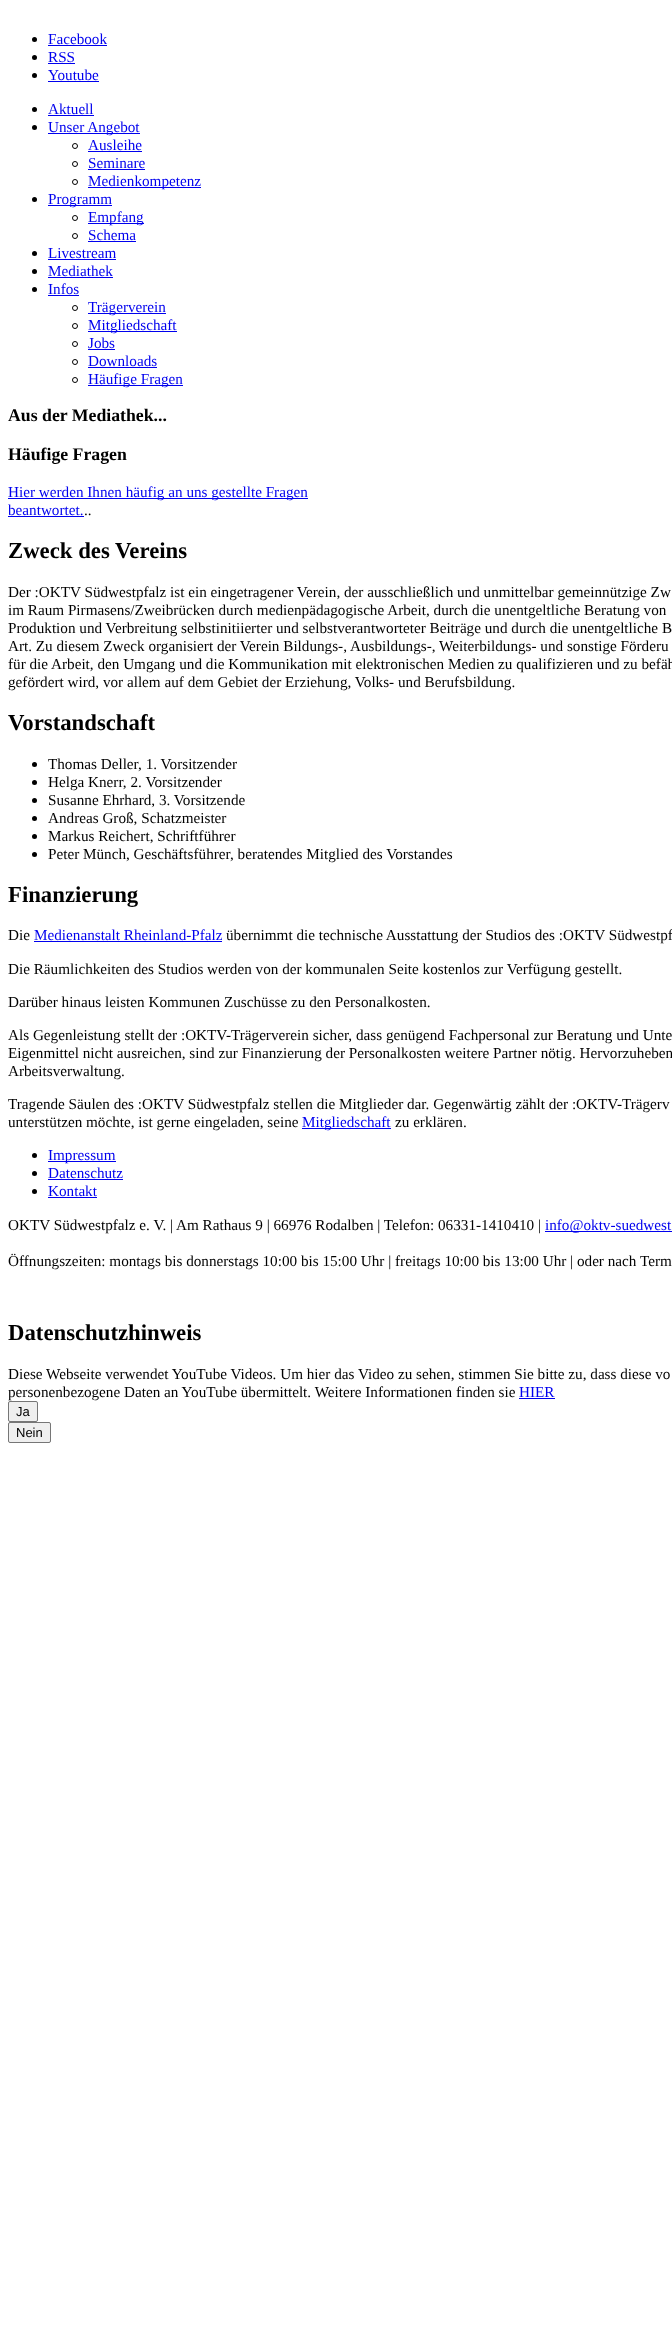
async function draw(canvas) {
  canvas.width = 672
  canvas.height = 2335
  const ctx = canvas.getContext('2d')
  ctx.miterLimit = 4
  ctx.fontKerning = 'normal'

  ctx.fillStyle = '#fff'
  ctx.fillRect(0, 0, 672, 2335)
  ctx.fillStyle = '#000'
  ctx.beginPath()
  ctx.arc(34.5, 39.5, 2.5, 0, 2 * Math.PI)
  ctx.fill()
  ctx.font = '15.2px Liberation Serif'
  ctx.fillStyle = '#00e'
  ctx.fillText('Facebook', 48, 44)
  ctx.fillRect(48, 45, 59, 1)
  ctx.fillStyle = '#000'
  ctx.beginPath()
  ctx.arc(34.5, 57.5, 2.5, 0, 2 * Math.PI)
  ctx.fill()
  ctx.fillStyle = '#00e'
  ctx.fillText('RSS', 48, 62)
  ctx.fillRect(48, 63, 27, 1)
  ctx.fillStyle = '#000'
  ctx.beginPath()
  ctx.arc(34.5, 75.5, 2.5, 0, 2 * Math.PI)
  ctx.fill()
  ctx.fillStyle = '#00e'
  ctx.fillText('Youtube', 48, 80)
  ctx.fillRect(48, 81, 51, 1)
  ctx.fillStyle = '#000'
  ctx.beginPath()
  ctx.arc(34.5, 109.5, 2.5, 0, 2 * Math.PI)
  ctx.fill()
  ctx.fillStyle = '#00e'
  ctx.fillText('Aktuell', 48, 114)
  ctx.fillRect(48, 115, 46, 1)
  ctx.fillStyle = '#000'
  ctx.beginPath()
  ctx.arc(34.5, 127.5, 2.5, 0, 2 * Math.PI)
  ctx.fill()
  ctx.fillStyle = '#00e'
  ctx.fillRect(48, 133, 92, 1)
  ctx.fillText('Unser Angebot', 48, 132)
  ctx.beginPath()
  ctx.arc(75, 146, 2.5, 0, 2 * Math.PI)
  ctx.strokeStyle = '#000'
  ctx.stroke()
  ctx.fillText('Ausleihe', 88, 150)
  ctx.fillRect(88, 151, 54, 1)
  ctx.beginPath()
  ctx.arc(75, 164, 2.5, 0, 2 * Math.PI)
  ctx.stroke()
  ctx.fillText('Seminare', 88, 168)
  ctx.fillRect(88, 169, 57, 1)
  ctx.beginPath()
  ctx.arc(75, 182, 2.5, 0, 2 * Math.PI)
  ctx.stroke()
  ctx.fillRect(88, 187, 113, 1)
  ctx.fillText('Medienkompetenz', 88, 186)
  ctx.fillStyle = '#000'
  ctx.beginPath()
  ctx.arc(34.5, 199.5, 2.5, 0, 2 * Math.PI)
  ctx.fill()
  ctx.fillStyle = '#00e'
  ctx.fillRect(48, 205, 64, 1)
  ctx.fillText('Programm', 48, 204)
  ctx.beginPath()
  ctx.arc(75, 218, 2.5, 0, 2 * Math.PI)
  ctx.stroke()
  ctx.fillRect(88, 223, 56, 1)
  ctx.fillText('Empfang', 88, 222)
  ctx.beginPath()
  ctx.arc(75, 236, 2.5, 0, 2 * Math.PI)
  ctx.stroke()
  ctx.fillText('Schema', 88, 240)
  ctx.fillRect(88, 241, 48, 1)
  ctx.fillStyle = '#000'
  ctx.beginPath()
  ctx.arc(34.5, 253.5, 2.5, 0, 2 * Math.PI)
  ctx.fill()
  ctx.fillStyle = '#00e'
  ctx.fillText('Livestream', 48, 258)
  ctx.fillRect(48, 259, 68, 1)
  ctx.fillStyle = '#000'
  ctx.beginPath()
  ctx.arc(34.5, 271.5, 2.5, 0, 2 * Math.PI)
  ctx.fill()
  ctx.fillStyle = '#00e'
  ctx.fillText('Mediathek', 48, 276)
  ctx.fillRect(48, 277, 65, 1)
  ctx.fillStyle = '#000'
  ctx.beginPath()
  ctx.arc(34.5, 289.5, 2.5, 0, 2 * Math.PI)
  ctx.fill()
  ctx.fillStyle = '#00e'
  ctx.fillText('Infos', 48, 294)
  ctx.fillRect(48, 295, 31, 1)
  ctx.beginPath()
  ctx.arc(75, 308, 2.5, 0, 2 * Math.PI)
  ctx.stroke()
  ctx.fillRect(88, 313, 78, 1)
  ctx.fillText('Trägerverein', 88, 312)
  ctx.beginPath()
  ctx.arc(75, 326, 2.5, 0, 2 * Math.PI)
  ctx.stroke()
  ctx.fillRect(88, 331, 89, 1)
  ctx.fillText('Mitgliedschaft', 88, 330)
  ctx.beginPath()
  ctx.arc(75, 344, 2.5, 0, 2 * Math.PI)
  ctx.stroke()
  ctx.fillText('Jobs', 88, 348)
  ctx.fillRect(88, 349, 27, 1)
  ctx.beginPath()
  ctx.arc(75, 362, 2.5, 0, 2 * Math.PI)
  ctx.stroke()
  ctx.fillText('Downloads', 88, 366)
  ctx.fillRect(88, 367, 69, 1)
  ctx.beginPath()
  ctx.arc(75, 380, 2.5, 0, 2 * Math.PI)
  ctx.stroke()
  ctx.fillRect(88, 385, 95, 1)
  ctx.fillText('Häufige Fragen', 88, 384)
  ctx.font = 'bold 17.75px Liberation Serif'
  ctx.fillStyle = '#000'
  ctx.fillText('Aus der Mediathek...', 8, 421)
  ctx.fillText('Häufige Fragen', 8, 460)
  ctx.fillStyle = '#00e'
  ctx.fillRect(8, 498, 300, 1)
  ctx.font = '15.2px Liberation Serif'
  ctx.fillText('Hier werden Ihnen häufig an uns gestellte Fragen', 8, 497)
  ctx.fillText('beantwortet.', 8, 515)
  ctx.fillRect(8, 516, 76, 1)
  ctx.fillStyle = '#000'
  ctx.fillText('..', 84, 515)
  ctx.font = 'bold 22.75px Liberation Serif'
  ctx.fillText('Zweck des Vereins', 8, 558)
  ctx.font = '15.2px Liberation Serif'
  ctx.fillText('Der :OKTV Südwestpfalz ist ein eingetragener Verein, der ausschließlich und unmittelbar gemeinnützige Zw', 8, 597)
  ctx.fillText('im Raum Pirmasens/Zweibrücken durch medienpädagogische Arbeit, durch die unentgeltliche Beratung von', 8, 615)
  ctx.fillText('Produktion und Verbreitung selbstinitiierter und selbstverantworteter Beiträge und durch die unentgeltliche B', 8, 633)
  ctx.fillText('Art. Zu diesem Zweck organisiert der Verein Bildungs-, Ausbildungs-, Weiterbildungs- und sonstige Förderu', 8, 651)
  ctx.fillText('für die Arbeit, den Umgang und die Kommunikation mit elektronischen Medien zu qualifizieren und zu befäh', 8, 669)
  ctx.fillText('gefördert wird, vor allem auf dem Gebiet der Erziehung, Volks- und Berufsbildung.', 8, 687)
  ctx.font = 'bold 22.75px Liberation Serif'
  ctx.fillText('Vorstandschaft', 8, 730)
  ctx.beginPath()
  ctx.arc(34.5, 764.5, 2.5, 0, 2 * Math.PI)
  ctx.fill()
  ctx.font = '15.2px Liberation Serif'
  ctx.fillText('Thomas Deller, 1. Vorsitzender', 48, 769)
  ctx.beginPath()
  ctx.arc(34.5, 782.5, 2.5, 0, 2 * Math.PI)
  ctx.fill()
  ctx.fillText('Helga Knerr, 2. Vorsitzender', 48, 787)
  ctx.beginPath()
  ctx.arc(34.5, 800.5, 2.5, 0, 2 * Math.PI)
  ctx.fill()
  ctx.fillText('Susanne Ehrhard, 3. Vorsitzende', 48, 805)
  ctx.beginPath()
  ctx.arc(34.5, 818.5, 2.5, 0, 2 * Math.PI)
  ctx.fill()
  ctx.fillText('Andreas Groß, Schatzmeister', 48, 823)
  ctx.beginPath()
  ctx.arc(34.5, 836.5, 2.5, 0, 2 * Math.PI)
  ctx.fill()
  ctx.fillText('Markus Reichert, Schriftführer', 48, 841)
  ctx.beginPath()
  ctx.arc(34.5, 854.5, 2.5, 0, 2 * Math.PI)
  ctx.fill()
  ctx.fillText('Peter Münch, Geschäftsführer, beratendes Mitglied des Vorstandes', 48, 859)
  ctx.font = 'bold 22.75px Liberation Serif'
  ctx.fillText('Finanzierung', 8, 902)
  ctx.font = '15.2px Liberation Serif'
  ctx.fillText('Die', 8, 940)
  ctx.fillStyle = '#00e'
  ctx.fillText('Medienanstalt Rheinland-Pfalz', 34, 940)
  ctx.fillRect(34, 941, 188, 1)
  ctx.fillStyle = '#000'
  ctx.fillText('übernimmt die technische Ausstattung der Studios des :OKTV Südwestpf', 226, 940)
  ctx.fillText('Die Räumlichkeiten des Studios werden von der kommunalen Seite kostenlos zur Verfügung gestellt.', 8, 974)
  ctx.fillText('Darüber hinaus leisten Kommunen Zuschüsse zu den Personalkosten.', 8, 1007)
  ctx.fillText('Als Gegenleistung stellt der :OKTV-Trägerverein sicher, dass genügend Fachpersonal zur Beratung und Unte', 8, 1040)
  ctx.fillText('Eigenmittel nicht ausreichen, sind zur Finanzierung der Personalkosten weitere Partner nötig. Hervorzuheben', 8, 1058)
  ctx.fillText('Arbeitsverwaltung.', 8, 1076)
  ctx.fillText('Tragende Säulen des :OKTV Südwestpfalz stellen die Mitglieder dar. Gegenwärtig zählt der :OKTV-Trägerv', 8, 1109)
  ctx.fillText('unterstützen möchte, ist gerne eingeladen, seine', 8, 1127)
  ctx.fillStyle = '#00e'
  ctx.fillRect(302, 1128, 89, 1)
  ctx.fillText('Mitgliedschaft', 302, 1127)
  ctx.fillStyle = '#000'
  ctx.fillText('zu erklären.', 395, 1127)
  ctx.beginPath()
  ctx.arc(34.5, 1155.5, 2.5, 0, 2 * Math.PI)
  ctx.fill()
  ctx.fillStyle = '#00e'
  ctx.fillRect(48, 1161, 68, 1)
  ctx.fillText('Impressum', 48, 1160)
  ctx.fillStyle = '#000'
  ctx.beginPath()
  ctx.arc(34.5, 1173.5, 2.5, 0, 2 * Math.PI)
  ctx.fill()
  ctx.fillStyle = '#00e'
  ctx.fillText('Datenschutz', 48, 1178)
  ctx.fillRect(48, 1179, 75, 1)
  ctx.fillStyle = '#000'
  ctx.beginPath()
  ctx.arc(34.5, 1191.5, 2.5, 0, 2 * Math.PI)
  ctx.fill()
  ctx.fillStyle = '#00e'
  ctx.fillText('Kontakt', 48, 1196)
  ctx.fillRect(48, 1197, 49, 1)
  ctx.fillStyle = '#000'
  ctx.fillText('OKTV Südwestpfalz e. V. | Am Rathaus 9 | 66976 Rodalben | Telefon: 06331-1410410 |', 8, 1230)
  ctx.fillStyle = '#00e'
  ctx.fillRect(545, 1231, 127, 1)
  ctx.fillText('info@oktv-suedwest', 545, 1230)
  ctx.fillStyle = '#000'
  ctx.fillText('Öffnungszeiten: montags bis donnerstags 10:00 bis 15:00 Uhr | freitags 10:00 bis 13:00 Uhr | oder nach Term', 8, 1266)
  ctx.font = 'bold 22.75px Liberation Serif'
  ctx.fillText('Datenschutzhinweis', 8, 1340)
  ctx.font = '15.2px Liberation Serif'
  ctx.fillText('Diese Webseite verwendet YouTube Videos. Um hier das Video zu sehen, stimmen Sie bitte zu, dass diese vo', 8, 1379)
  ctx.fillText('personenbezogene Daten an YouTube übermittelt. Weitere Informationen finden sie', 8, 1397)
  ctx.fillStyle = '#00e'
  ctx.fillText('HIER', 519, 1397)
  ctx.fillRect(519, 1398, 36, 1)
  ctx.fillStyle = '#efefef'
  ctx.beginPath()
  ctx.roundRect(8.5, 1401.5, 29, 20, 1.5)
  ctx.fill()
  ctx.strokeStyle = '#767676'
  ctx.stroke()
  ctx.font = '13px Liberation Sans'
  ctx.fillStyle = '#000'
  ctx.fillText('Ja', 16, 1416)
  ctx.fillStyle = '#efefef'
  ctx.beginPath()
  ctx.roundRect(8.5, 1422.5, 42, 20, 1.5)
  ctx.fill()
  ctx.stroke()
  ctx.fillStyle = '#000'
  ctx.fillText('Nein', 16, 1437)
}

draw(document.querySelector('canvas'))
